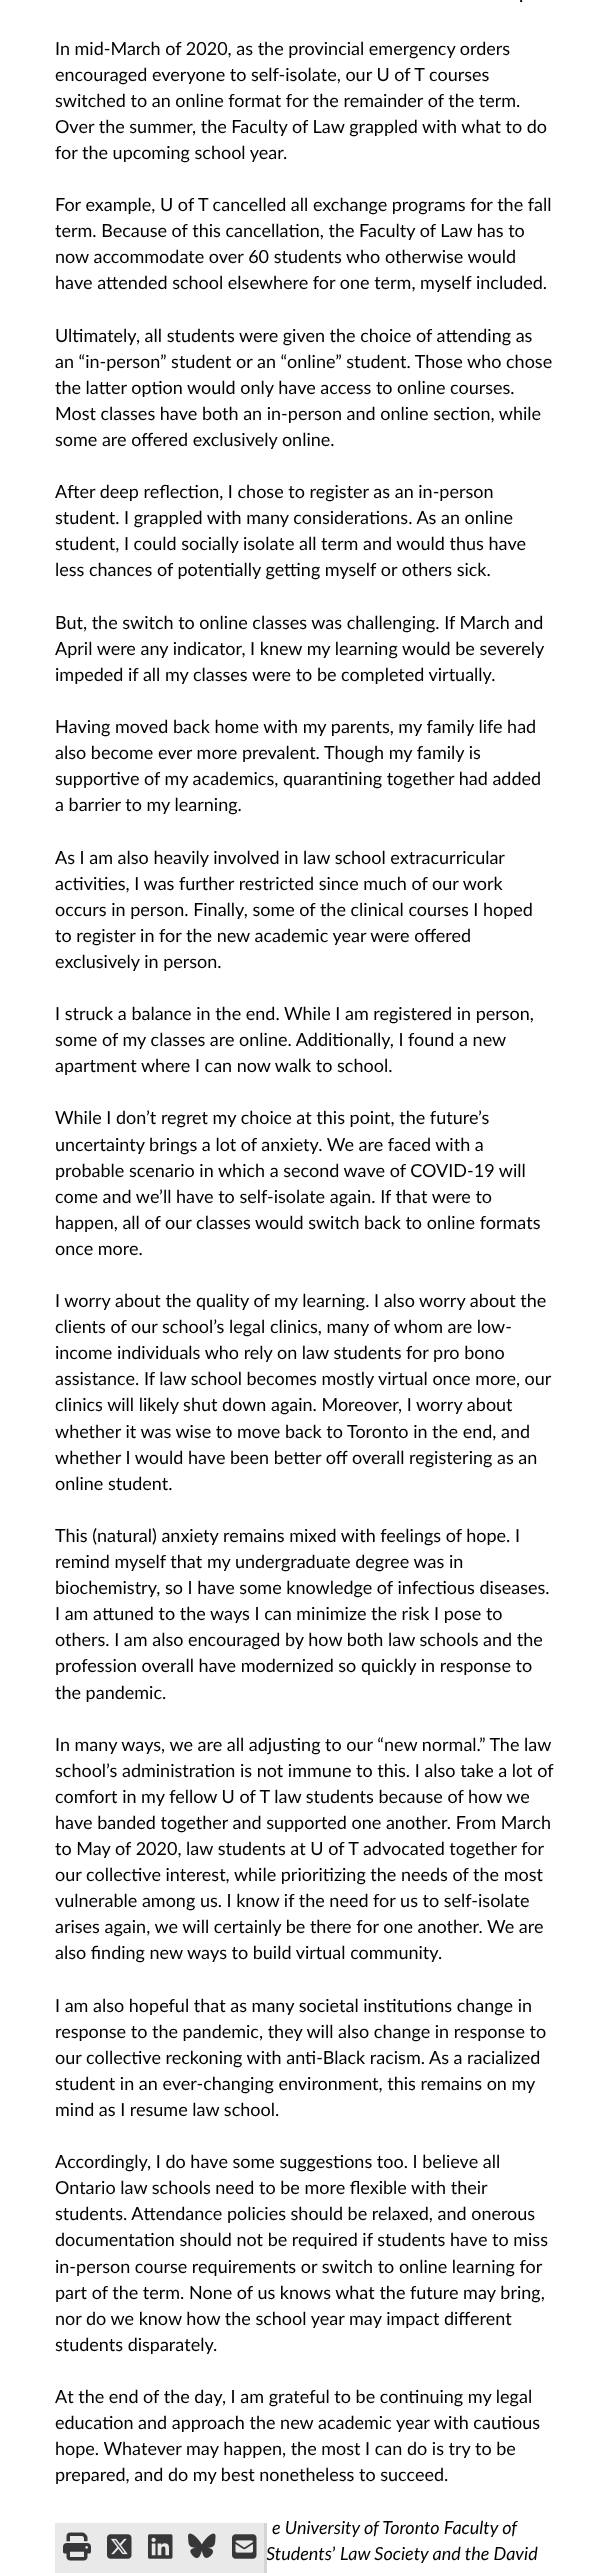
async function draw(canvas) {
  canvas.width = 609
  canvas.height = 2573
  const ctx = canvas.getContext('2d')
  ctx.miterLimit = 4
  ctx.fontKerning = 'normal'
  async function loadImage(src) {
    const img = new Image()
    img.src = src
    await img.decode()
    return img
  }

  ctx.fillStyle = '#fff'
  ctx.fillRect(0, 0, 609, 2573)
  ctx.font = '18px Lato'
  ctx.fillStyle = '#000'
  ctx.fillText('.', 519, 2)
  ctx.fillText('In mid-March of 2020, as the provincial emergency orders', 55, 55)
  ctx.fillText('encouraged everyone to self-isolate, our U of T courses', 55, 81)
  ctx.fillText('switched to an online format for the remainder of the term.', 55, 107)
  ctx.fillText('Over the summer, the Faculty of Law grappled with what to do', 55, 133)
  ctx.fillText('for the upcoming school year.', 55, 159)
  ctx.fillText('For example, U of T cancelled all exchange programs for the fall', 55, 211)
  ctx.fillText('term. Because of this cancellation, the Faculty of Law has to', 55, 237)
  ctx.fillText('now accommodate over 60 students who otherwise would', 55, 263)
  ctx.fillText('have attended school elsewhere for one term, myself included.', 55, 289)
  ctx.fillText('Ultimately, all students were given the choice of attending as', 55, 342)
  ctx.fillText('an “in-person” student or an “online” student. Those who chose', 55, 368)
  ctx.fillText('the latter option would only have access to online courses.', 55, 394)
  ctx.fillText('Most classes have both an in-person and online section, while', 55, 420)
  ctx.fillText('some are offered exclusively online.', 55, 446)
  ctx.fillText('After deep reflection, I chose to register as an in-person', 55, 498)
  ctx.fillText('student. I grappled with many considerations. As an online', 55, 524)
  ctx.fillText('student, I could socially isolate all term and would thus have', 55, 550)
  ctx.fillText('less chances of potentially getting myself or others sick.', 55, 576)
  ctx.fillText('But, the switch to online classes was challenging. If March and', 55, 629)
  ctx.fillText('April were any indicator, I knew my learning would be severely', 55, 655)
  ctx.fillText('impeded if all my classes were to be completed virtually.', 55, 681)
  ctx.fillText('Having moved back home with my parents, my family life had', 55, 733)
  ctx.fillText('also become ever more prevalent. Though my family is', 55, 759)
  ctx.fillText('supportive of my academics, quarantining together had added', 55, 785)
  ctx.fillText('a barrier to my learning.', 55, 811)
  ctx.fillText('As I am also heavily involved in law school extracurricular', 55, 864)
  ctx.fillText('activities, I was further restricted since much of our work', 55, 890)
  ctx.fillText('occurs in person. Finally, some of the clinical courses I hoped', 55, 916)
  ctx.fillText('to register in for the new academic year were offered', 55, 942)
  ctx.fillText('exclusively in person.', 55, 968)
  ctx.fillText('I struck a balance in the end. While I am registered in person,', 55, 1020)
  ctx.fillText('some of my classes are online. Additionally, I found a new', 55, 1046)
  ctx.fillText('apartment where I can now walk to school.', 55, 1072)
  ctx.fillText('While I don’t regret my choice at this point, the future’s', 55, 1124)
  ctx.fillText('uncertainty brings a lot of anxiety. We are faced with a', 55, 1151)
  ctx.fillText('probable scenario in which a second wave of COVID-19 will', 55, 1177)
  ctx.fillText('come and we’ll have to self-isolate again. If that were to', 55, 1203)
  ctx.fillText('happen, all of our classes would switch back to online formats', 55, 1229)
  ctx.fillText('once more.', 55, 1255)
  ctx.fillText('I worry about the quality of my learning. I also worry about the', 55, 1307)
  ctx.fillText('clients of our school’s legal clinics, many of whom are low-', 55, 1333)
  ctx.fillText('income individuals who rely on law students for pro bono', 55, 1359)
  ctx.fillText('assistance. If law school becomes mostly virtual once more, our', 55, 1385)
  ctx.fillText('clinics will likely shut down again. Moreover, I worry about', 55, 1411)
  ctx.fillText('whether it was wise to move back to Toronto in the end, and', 55, 1438)
  ctx.fillText('whether I would have been better off overall registering as an', 55, 1464)
  ctx.fillText('online student.', 55, 1490)
  ctx.fillText('This (natural) anxiety remains mixed with feelings of hope. I', 55, 1542)
  ctx.fillText('remind myself that my undergraduate degree was in', 55, 1568)
  ctx.fillText('biochemistry, so I have some knowledge of infectious diseases.', 55, 1594)
  ctx.fillText('I am attuned to the ways I can minimize the risk I pose to', 55, 1620)
  ctx.fillText('others. I am also encouraged by how both law schools and the', 55, 1646)
  ctx.fillText('profession overall have modernized so quickly in response to', 55, 1672)
  ctx.fillText('the pandemic.', 55, 1699)
  ctx.fillText('In many ways, we are all adjusting to our “new normal.” The law', 55, 1751)
  ctx.fillText('school’s administration is not immune to this. I also take a lot of', 55, 1777)
  ctx.fillText('comfort in my fellow U of T law students because of how we', 55, 1803)
  ctx.fillText('have banded together and supported one another. From March', 55, 1829)
  ctx.fillText('to May of 2020, law students at U of T advocated together for', 55, 1855)
  ctx.fillText('our collective interest, while prioritizing the needs of the most', 55, 1881)
  ctx.fillText('vulnerable among us. I know if the need for us to self-isolate', 55, 1907)
  ctx.fillText('arises again, we will certainly be there for one another. We are', 55, 1933)
  ctx.fillText('also finding new ways to build virtual community.', 55, 1959)
  ctx.fillText('I am also hopeful that as many societal institutions change in', 55, 2012)
  ctx.fillText('response to the pandemic, they will also change in response to', 55, 2038)
  ctx.fillText('our collective reckoning with anti-Black racism. As a racialized', 55, 2064)
  ctx.fillText('student in an ever-changing environment, this remains on my', 55, 2090)
  ctx.fillText('mind as I resume law school.', 55, 2116)
  ctx.fillText('Accordingly, I do have some suggestions too. I believe all', 55, 2168)
  ctx.fillText('Ontario law schools need to be more flexible with their', 55, 2194)
  ctx.fillText('students. Attendance policies should be relaxed, and onerous', 55, 2220)
  ctx.fillText('documentation should not be required if students have to miss', 55, 2246)
  ctx.fillText('in-person course requirements or switch to online learning for', 55, 2273)
  ctx.fillText('part of the term. None of us knows what the future may bring,', 55, 2299)
  ctx.fillText('nor do we know how the school year may impact different', 55, 2325)
  ctx.fillText('students disparately.', 55, 2351)
  ctx.fillText('At the end of the day, I am grateful to be continuing my legal', 55, 2403)
  ctx.fillText('education and approach the new academic year with cautious', 55, 2429)
  ctx.fillText('hope. Whatever may happen, the most I can do is try to be', 55, 2455)
  ctx.fillText('prepared, and do my best nonetheless to succeed.', 55, 2481)
  ctx.font = 'italic 18px Lato'
  ctx.fillText('e University of Toronto Faculty of', 272, 2534)
  ctx.fillText('Students', 266, 2560)
  ctx.font = '18px Lato'
  ctx.fillText('’', 332, 2560)
  ctx.font = 'italic 18px Lato'
  ctx.fillText('Law Society and the David', 340, 2560)
  ctx.fillStyle = '#d2d4d5'
  ctx.fillRect(264, 2523, 3, 50)
  ctx.fillStyle = '#e9e9ea'
  ctx.fillRect(55, 2523, 209, 50)
  ctx.drawImage(await loadImage('image0.png'), 63, 2532, 28, 29)
  ctx.drawImage(await loadImage('image1.png'), 107, 2534, 25, 25)
  ctx.drawImage(await loadImage('image2.png'), 148, 2534, 25, 25)
  ctx.drawImage(await loadImage('image3.png'), 188, 2533, 28, 26)
  ctx.drawImage(await loadImage('image4.png'), 232, 2534, 25, 25)
}

draw(document.querySelector('canvas'))
